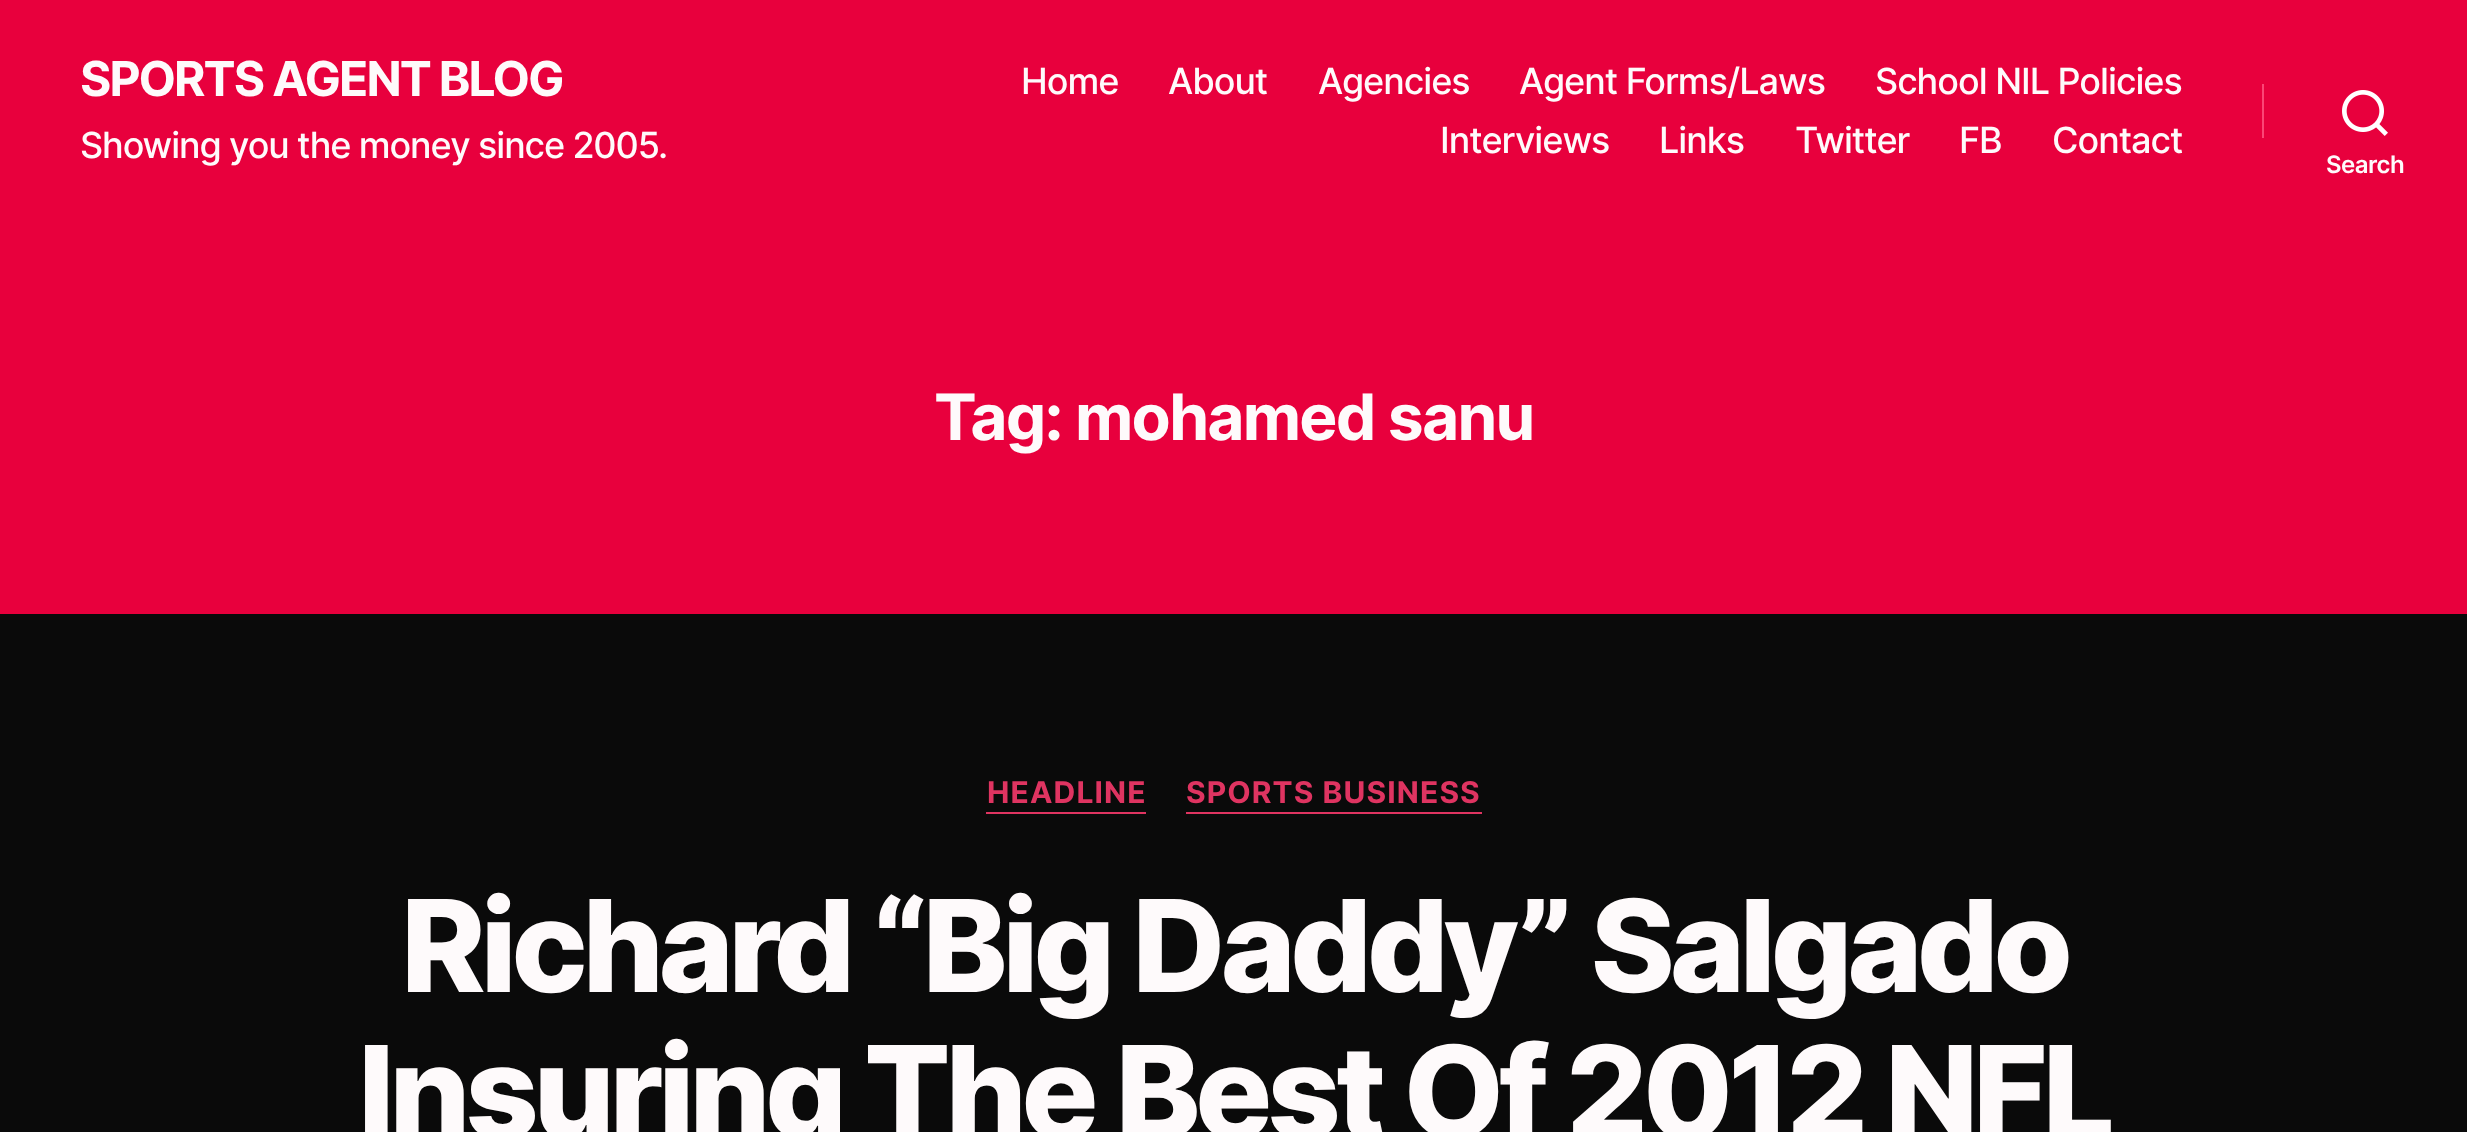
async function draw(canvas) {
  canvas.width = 2467
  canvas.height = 1132
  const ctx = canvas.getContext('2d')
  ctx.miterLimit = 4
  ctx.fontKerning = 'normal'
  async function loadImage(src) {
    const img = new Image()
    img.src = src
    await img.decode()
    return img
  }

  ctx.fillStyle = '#0a0a0a'
  ctx.fillRect(0, 0, 2467, 1132)
  ctx.fillStyle = '#e8003d'
  ctx.fillRect(0, 0, 2467, 614)
  ctx.letterSpacing = '-2px'
  ctx.font = 'bold 48px Inter'
  ctx.fillStyle = '#fefafb'
  ctx.fillText('SPORTS AGENT BLOG', 80, 96)
  ctx.letterSpacing = '-1.1px'
  ctx.font = '500 36px Inter'
  ctx.fillText('Showing you the money since 2005.', 80, 158)
  ctx.letterSpacing = '-1px'
  ctx.fillText('Home', 1021, 94)
  ctx.fillText('About', 1168, 94)
  ctx.fillText('Agencies', 1318, 94)
  ctx.fillText('Agent Forms/Laws', 1519, 94)
  ctx.fillText('School NIL Policies', 1875, 94)
  ctx.fillText('Interviews', 1440, 153)
  ctx.fillText('Links', 1659, 153)
  ctx.fillText('Twitter', 1795, 153)
  ctx.fillText('FB', 1959, 153)
  ctx.fillText('Contact', 2052, 153)
  ctx.fillStyle = '#fb4676'
  ctx.fillRect(2262, 84, 2, 54)
  ctx.drawImage(await loadImage('image0.png'), 2342, 90, 46, 46)
  ctx.letterSpacing = '-0.5px'
  ctx.font = '600 24px Inter'
  ctx.fillStyle = '#fefafb'
  ctx.fillText('Search', 2326, 173)
  ctx.letterSpacing = '-1.75px'
  ctx.font = 'bold 64px Inter'
  ctx.fillText('Tag:', 934, 440)
  ctx.fillText('mohamed sanu', 1075, 440)
  ctx.fillStyle = '#df3461'
  ctx.fillRect(986, 812, 160, 2)
  ctx.letterSpacing = '1.1px'
  ctx.font = 'bold 30px Inter'
  ctx.fillText('HEADLINE', 987, 803)
  ctx.fillRect(1186, 812, 296, 2)
  ctx.fillText('SPORTS BUSINESS', 1186, 803)
  ctx.letterSpacing = '-5.3px'
  ctx.font = '800 128px Inter'
  ctx.fillStyle = '#fefafb'
  ctx.fillText('Richard “Big Daddy” Salgado', 401, 992)
  ctx.fillText('Insuring The Best Of 2012 NFL', 358, 1138)
}

draw(document.querySelector('canvas'))
